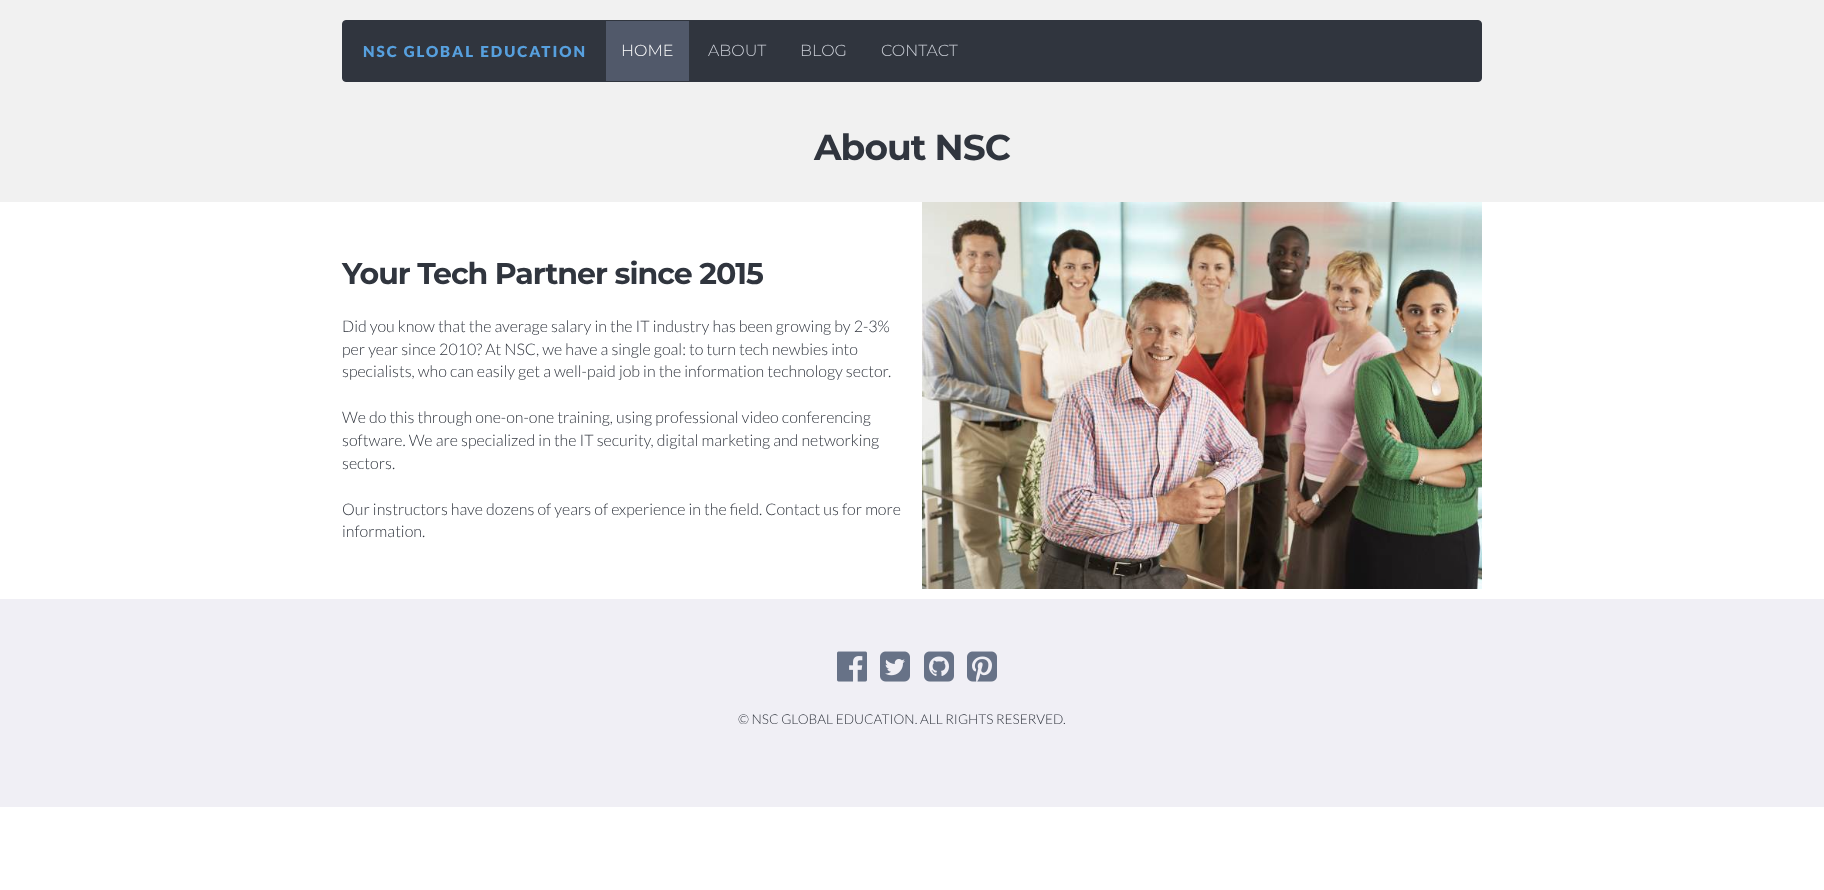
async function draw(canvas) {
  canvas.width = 1824
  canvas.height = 890
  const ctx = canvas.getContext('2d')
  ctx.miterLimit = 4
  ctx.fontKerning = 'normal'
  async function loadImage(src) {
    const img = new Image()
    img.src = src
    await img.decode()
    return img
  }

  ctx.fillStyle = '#fff'
  ctx.fillRect(0, 0, 1824, 890)
  ctx.fillStyle = '#f1f1f1'
  ctx.fillRect(0, 0, 1824, 202)
  ctx.fillStyle = '#30353e'
  ctx.beginPath()
  ctx.roundRect(342.5, 20.5, 1139, 61, 3.5)
  ctx.fill()
  ctx.strokeStyle = '#30353e'
  ctx.stroke()
  ctx.letterSpacing = '2px'
  ctx.font = '900 15.25px Lato'
  ctx.fillStyle = '#57a0de'
  ctx.fillText('NSC GLOBAL EDUCATION', 363, 57)
  ctx.fillStyle = '#51596a'
  ctx.fillRect(606, 21, 83, 60)
  ctx.letterSpacing = '0px'
  ctx.font = '300 16px Montserrat'
  ctx.fillStyle = '#fff'
  ctx.fillText('HOME', 621, 56)
  ctx.fillStyle = '#caced6'
  ctx.fillText('ABOUT', 708, 56)
  ctx.fillText('BLOG', 800, 56)
  ctx.fillText('CONTACT', 881, 56)
  ctx.letterSpacing = '-1px'
  ctx.font = 'bold 36px Montserrat'
  ctx.fillStyle = '#30353e'
  ctx.fillText('About NSC', 814, 160)
  ctx.font = 'bold 30px Montserrat'
  ctx.fillText('Your Tech Partner since 2015', 342, 284)
  ctx.letterSpacing = '0px'
  ctx.font = '300 16px Lato'
  ctx.fillText('Did you know that the average salary in the IT industry has been growing by 2-3%', 342, 332)
  ctx.fillText('per year since 2010? At NSC, we have a single goal: to turn tech newbies into', 342, 355)
  ctx.fillText('specialists, who can easily get a well-paid job in the information technology sector.', 342, 377)
  ctx.fillText('We do this through one-on-one training, using professional video conferencing', 342, 423)
  ctx.fillText('software. We are specialized in the IT security, digital marketing and networking', 342, 446)
  ctx.fillText('sectors.', 342, 469)
  ctx.fillText('Our instructors have dozens of years of experience in the field. Contact us for more', 342, 515)
  ctx.fillText('information.', 342, 537)
  ctx.drawImage(await loadImage('image0.png'), 922, 202, 560, 387)
  ctx.fillStyle = '#f0eff5'
  ctx.fillRect(0, 599, 1824, 208)
  ctx.drawImage(await loadImage('image1.png'), 837, 651, 30, 31)
  ctx.drawImage(await loadImage('image2.png'), 880, 651, 30, 31)
  ctx.drawImage(await loadImage('image3.png'), 924, 651, 30, 31)
  ctx.drawImage(await loadImage('image4.png'), 967, 651, 30, 31)
  ctx.font = '300 13.6px Lato'
  ctx.fillStyle = '#30353e'
  ctx.fillText('© NSC GLOBAL EDUCATION. ALL RIGHTS RESERVED.', 738, 724)
}

draw(document.querySelector('canvas'))
